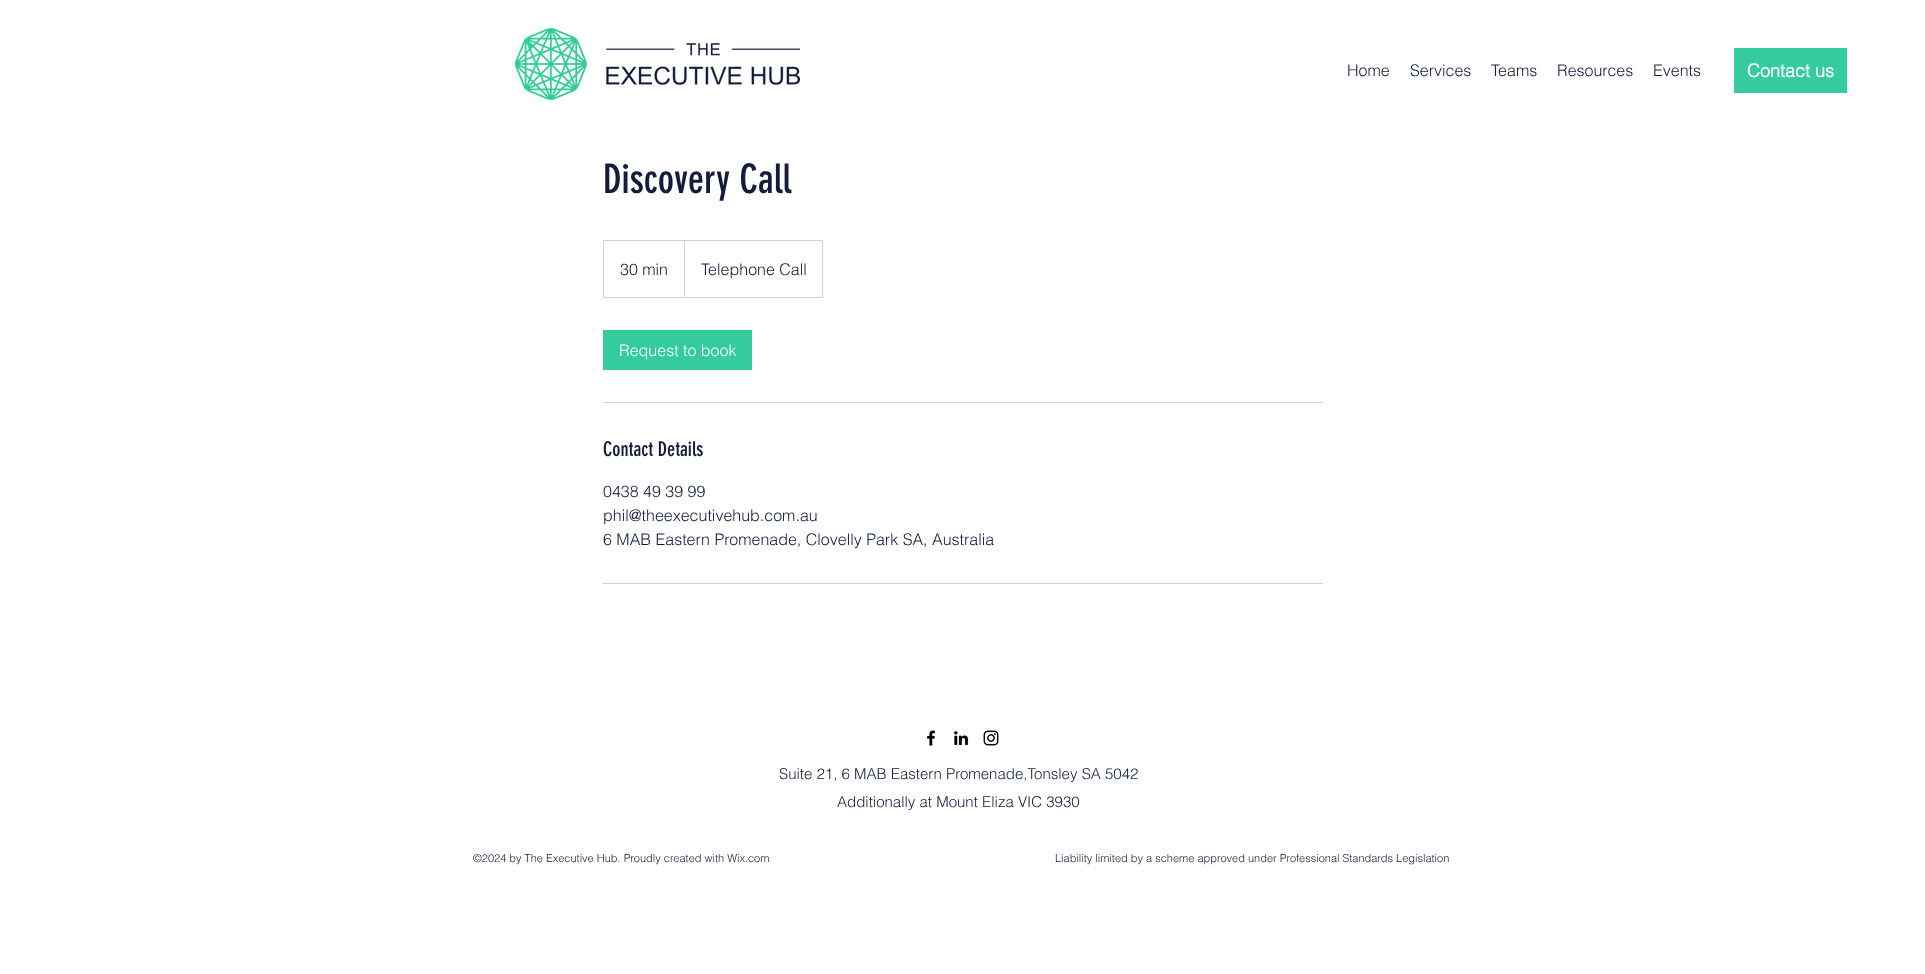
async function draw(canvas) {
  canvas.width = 1925
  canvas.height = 974
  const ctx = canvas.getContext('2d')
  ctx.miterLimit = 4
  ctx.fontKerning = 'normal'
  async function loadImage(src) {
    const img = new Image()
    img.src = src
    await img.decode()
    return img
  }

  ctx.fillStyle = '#fff'
  ctx.fillRect(0, 0, 1925, 974)
  ctx.drawImage(await loadImage('image0.png'), 515, 28, 285, 72)
  ctx.font = '300 16px helvetica'
  ctx.fillStyle = '#141c3c'
  ctx.fillText('Home', 1347, 76)
  ctx.fillText('Services', 1410, 76)
  ctx.fillText('Teams', 1491, 76)
  ctx.fillText('Resources', 1557, 76)
  ctx.fillText('Events', 1653, 76)
  ctx.fillStyle = '#34cc9c'
  ctx.fillRect(1734, 48, 113, 45)
  ctx.font = 'bold 18px helvetica'
  ctx.fillStyle = '#fff'
  ctx.fillText('Contact us', 1747, 77)
  ctx.font = '40px "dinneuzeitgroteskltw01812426"'
  ctx.fillStyle = '#141c3c'
  ctx.fillText('Discovery Call', 603, 193)
  ctx.strokeStyle = '#d0d2d8'
  ctx.strokeRect(603.5, 240.5, 219, 57)
  ctx.font = '300 16px helvetica'
  ctx.fillText('30 min', 620, 275)
  ctx.fillStyle = '#d0d2d8'
  ctx.beginPath()
  ctx.moveTo(684, 297)
  ctx.lineTo(684, 240)
  ctx.lineTo(685, 241)
  ctx.lineTo(685, 297)
  ctx.closePath()
  ctx.fill()
  ctx.fillStyle = '#141c3c'
  ctx.fillText('Telephone Call', 701, 275)
  ctx.fillStyle = '#34cc9c'
  ctx.fillRect(603, 330, 149, 40)
  ctx.fillStyle = '#fff'
  ctx.fillText('Request to book', 619, 356)
  ctx.fillStyle = '#d0d2d8'
  ctx.fillRect(603, 402, 720, 1)
  ctx.font = '20px "dinneuzeitgroteskltw01812426"'
  ctx.fillStyle = '#141c3c'
  ctx.fillText('Contact Details', 603, 456)
  ctx.font = '300 16px helvetica'
  ctx.fillText('0438 49 39 99', 603, 497)
  ctx.fillText('phil@theexecutivehub.com.au', 603, 521)
  ctx.fillText('6 MAB Eastern Promenade, Clovelly Park SA, Australia', 603, 545)
  ctx.fillStyle = '#d0d2d8'
  ctx.fillRect(603, 583, 720, 1)
  ctx.drawImage(await loadImage('image1.png'), 927, 730, 9, 16)
  ctx.drawImage(await loadImage('image2.png'), 954, 731, 15, 15)
  ctx.drawImage(await loadImage('image3.png'), 983, 730, 16, 16)
  ctx.font = '300 15px helvetica'
  ctx.fillStyle = '#141c3c'
  ctx.fillText('Suite 21, 6 MAB Eastern Promenade,Tonsley SA 5042', 779, 779)
  ctx.fillText('Additionally at Mount Eliza VIC 3930', 837, 807)
  ctx.font = '300 11px helvetica'
  ctx.fillText('©2024 by The Executive Hub. Proudly created with Wix.com', 473, 862)
  ctx.fillText('Liability limited by a scheme approved under Professional Standards Legislation', 1055, 862)
}

draw(document.querySelector('canvas'))
